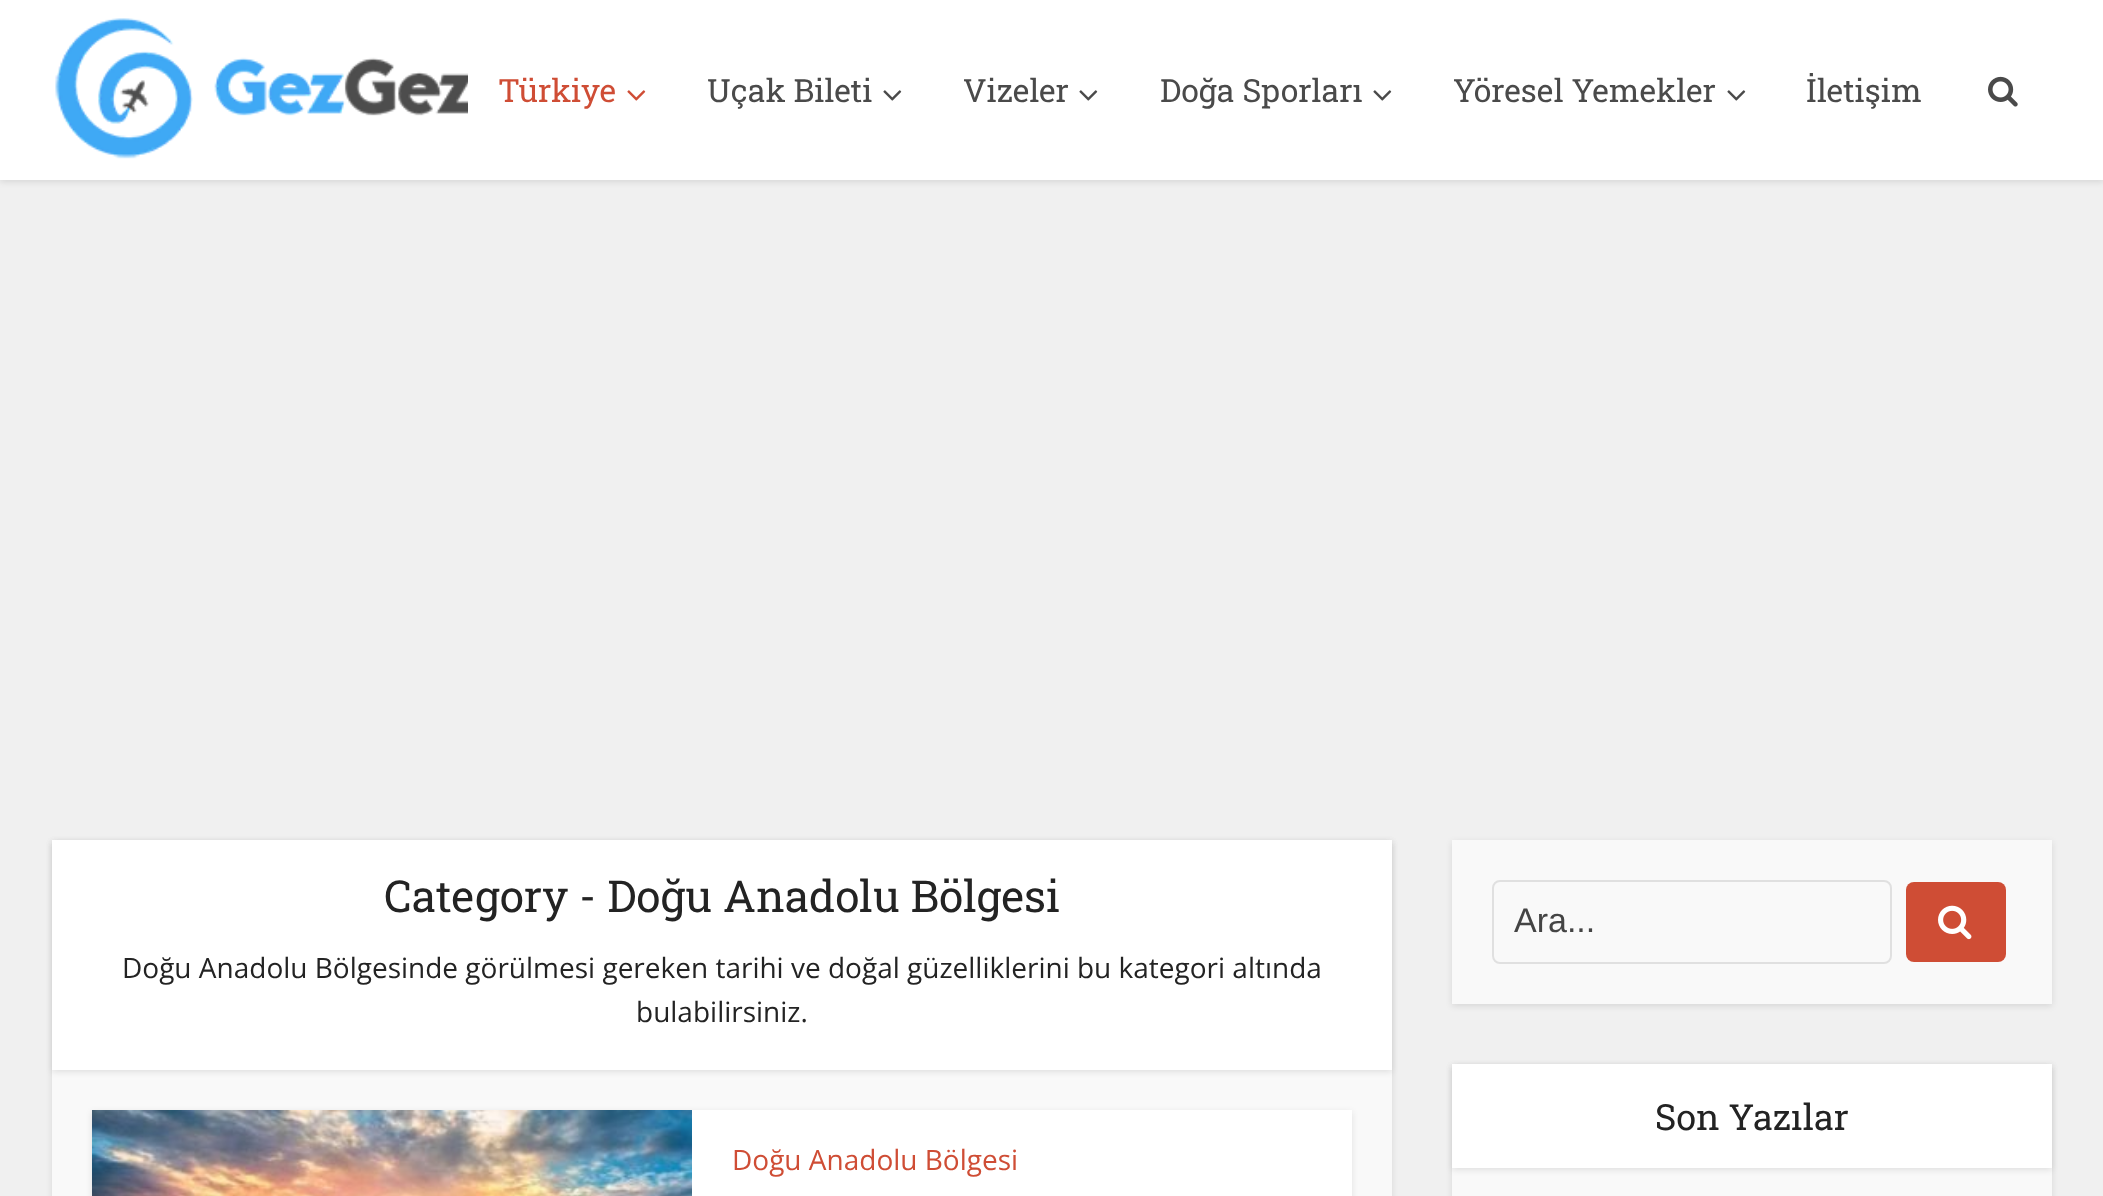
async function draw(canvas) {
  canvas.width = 2103
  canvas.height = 1196
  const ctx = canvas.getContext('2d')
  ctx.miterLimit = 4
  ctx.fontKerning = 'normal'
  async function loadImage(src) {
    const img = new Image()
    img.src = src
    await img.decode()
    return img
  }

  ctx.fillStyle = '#f0f0f0'
  ctx.fillRect(0, 0, 2103, 1196)
  ctx.fillStyle = '#0000001a'
  ctx.filter = 'blur(3px)'
  ctx.beginPath()
  ctx.rect(0, 2, 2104, 180)
  ctx.fill()
  ctx.filter = 'none'
  ctx.fillStyle = '#fff'
  ctx.fillRect(0, 0, 2103, 180)
  ctx.drawImage(await loadImage('image0.png'), 55, 18, 413, 141)
  ctx.font = '32px Roboto Slab'
  ctx.fillStyle = '#cf4d35'
  ctx.fillText('Türkiye', 498, 102)
  ctx.drawImage(await loadImage('image1.png'), 627, 90, 19, 11)
  ctx.fillStyle = '#4a4a4a'
  ctx.fillText('Uçak Bileti', 707, 102)
  ctx.drawImage(await loadImage('image2.png'), 883, 90, 19, 11)
  ctx.fillText('Vizeler', 963, 102)
  ctx.drawImage(await loadImage('image2.png'), 1079, 90, 19, 11)
  ctx.fillText('Doğa Sporları', 1160, 102)
  ctx.drawImage(await loadImage('image2.png'), 1373, 90, 19, 11)
  ctx.fillText('Yöresel Yemekler', 1453, 102)
  ctx.drawImage(await loadImage('image2.png'), 1727, 90, 19, 11)
  ctx.fillText('İletişim', 1806, 102)
  ctx.drawImage(await loadImage('image3.png'), 1988, 76, 30, 31)
  ctx.fillStyle = '#0000001a'
  ctx.filter = 'blur(3px)'
  ctx.beginPath()
  ctx.rect(52, 842, 1340, 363)
  ctx.fill()
  ctx.filter = 'none'
  ctx.fillStyle = '#f9f9f9'
  ctx.fillRect(52, 1070, 1340, 126)
  ctx.fillStyle = '#0000001a'
  ctx.filter = 'blur(3px)'
  ctx.beginPath()
  ctx.rect(52, 842, 1340, 230)
  ctx.fill()
  ctx.filter = 'none'
  ctx.fillStyle = '#fff'
  ctx.fillRect(52, 840, 1340, 230)
  ctx.font = '44px Roboto Slab'
  ctx.fillStyle = '#232323'
  ctx.fillText('Category - Doğu Anadolu Bölgesi', 384, 912)
  ctx.font = '28px Open Sans'
  ctx.fillText('Doğu Anadolu Bölgesinde görülmesi gereken tarihi ve doğal güzelliklerini bu kategori altında', 122, 978)
  ctx.fillText('bulabilirsiniz.', 636, 1022)
  ctx.fillStyle = '#0000001a'
  ctx.filter = 'blur(3px)'
  ctx.beginPath()
  ctx.rect(92, 1112, 1260, 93)
  ctx.fill()
  ctx.filter = 'none'
  ctx.fillStyle = '#fff'
  ctx.fillRect(692, 1110, 660, 86)
  ctx.drawImage(await loadImage('image4.png'), 92, 1110, 600, 86)
  ctx.fillStyle = '#cf4d35'
  ctx.fillText('Doğu Anadolu Bölgesi', 732, 1170)
  ctx.fillStyle = '#0000001a'
  ctx.filter = 'blur(3px)'
  ctx.beginPath()
  ctx.rect(1452, 842, 600, 164)
  ctx.fill()
  ctx.filter = 'none'
  ctx.fillStyle = '#f9f9f9'
  ctx.fillRect(1452, 840, 600, 164)
  ctx.beginPath()
  ctx.roundRect(1493, 881, 398, 82, 7)
  ctx.strokeStyle = '#e0e0e0'
  ctx.lineWidth = 2
  ctx.stroke()
  ctx.font = '34px Liberation Sans'
  ctx.fillStyle = '#444'
  ctx.fillText('Ara...', 1514, 932)
  ctx.fillStyle = '#cf4d35'
  ctx.beginPath()
  ctx.roundRect(1906, 882, 100, 80, 8)
  ctx.fill()
  ctx.drawImage(await loadImage('image5.png'), 1938, 905, 34, 35)
  ctx.fillStyle = '#0000001a'
  ctx.filter = 'blur(3px)'
  ctx.beginPath()
  ctx.rect(1452, 1066, 600, 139)
  ctx.fill()
  ctx.filter = 'none'
  ctx.fillStyle = '#f9f9f9'
  ctx.fillRect(1452, 1168, 600, 28)
  ctx.fillStyle = '#0000001a'
  ctx.filter = 'blur(3px)'
  ctx.beginPath()
  ctx.rect(1452, 1066, 600, 104)
  ctx.fill()
  ctx.filter = 'none'
  ctx.fillStyle = '#fff'
  ctx.fillRect(1452, 1064, 600, 104)
  ctx.font = '36px Roboto Slab'
  ctx.fillStyle = '#232323'
  ctx.fillText('Son Yazılar', 1655, 1130)
}

draw(document.querySelector('canvas'))
